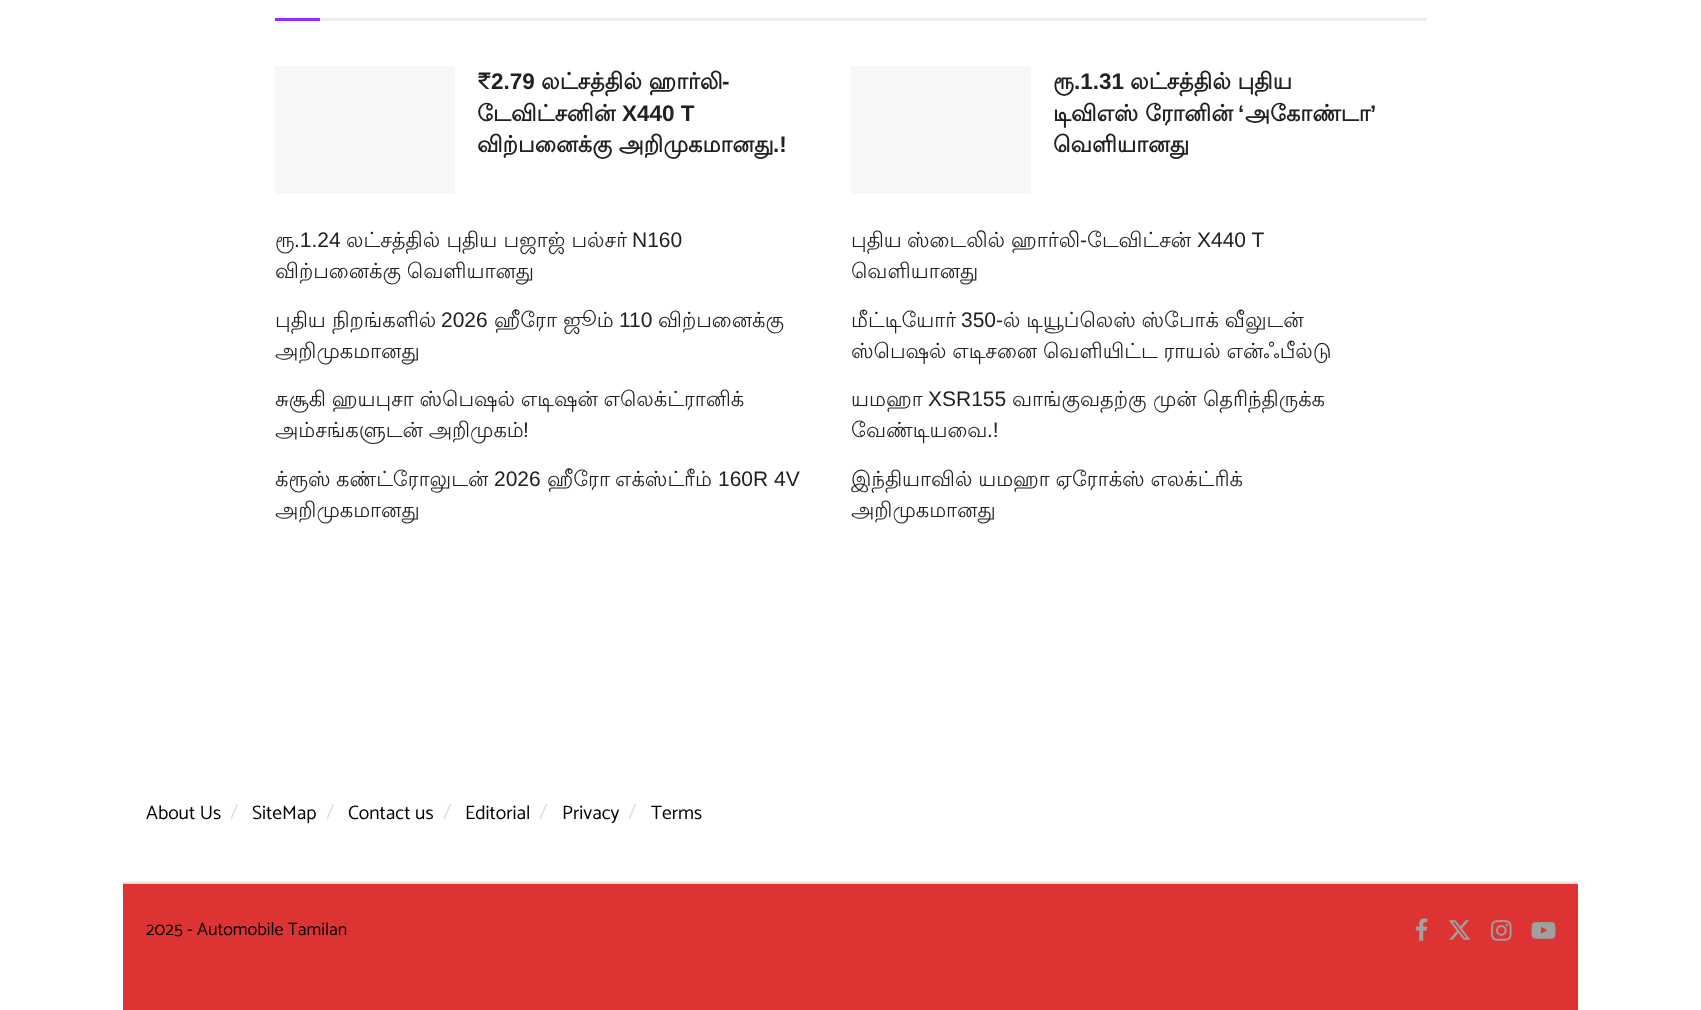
async function draw(canvas) {
  canvas.width = 1701
  canvas.height = 1010
  const ctx = canvas.getContext('2d')
  ctx.miterLimit = 4
  ctx.fontKerning = 'normal'
  async function loadImage(src) {
    const img = new Image()
    img.src = src
    await img.decode()
    return img
  }

  ctx.fillStyle = '#fff'
  ctx.fillRect(0, 0, 1701, 1010)
  ctx.fillStyle = '#eee'
  ctx.fillRect(320, 18, 1107, 3)
  ctx.fillStyle = '#922eff'
  ctx.fillRect(275, 18, 45, 3)
  ctx.fillStyle = '#f7f7f7'
  ctx.fillRect(275, 66, 180, 128)
  ctx.font = 'bold 22.5px Lohit Tamil'
  ctx.fillStyle = '#212121'
  ctx.fillText('₹', 477, 89)
  ctx.font = 'bold 22.5px Liberation Sans'
  ctx.fillText('2.79', 491, 89)
  ctx.font = 'bold 22.5px Lohit Tamil'
  ctx.fillText('லட்சத்தில் ஹார்லி', 541, 89)
  ctx.font = 'bold 22.5px Liberation Sans'
  ctx.fillText('-', 722, 89)
  ctx.font = 'bold 22.5px Lohit Tamil'
  ctx.fillText('டேவிட்சனின்', 477, 121)
  ctx.font = 'bold 22.5px Liberation Sans'
  ctx.fillText('X440 T', 622, 121)
  ctx.font = 'bold 22.5px Lohit Tamil'
  ctx.fillText('விற்பனைக்கு அறிமுகமானது', 477, 152)
  ctx.font = 'bold 22.5px Liberation Sans'
  ctx.fillText('.!', 773, 152)
  ctx.fillStyle = '#f7f7f7'
  ctx.fillRect(851, 66, 180, 128)
  ctx.font = 'bold 22.5px Lohit Tamil'
  ctx.fillStyle = '#212121'
  ctx.fillText('ரூ', 1053, 89)
  ctx.font = 'bold 22.5px Liberation Sans'
  ctx.fillText('.1.31', 1074, 89)
  ctx.font = 'bold 22.5px Lohit Tamil'
  ctx.fillText('லட்சத்தில் புதிய', 1130, 89)
  ctx.fillText('டிவிஎஸ் ரோனின்', 1053, 121)
  ctx.font = 'bold 22.5px Liberation Sans'
  ctx.fillText('‘', 1238, 121)
  ctx.font = 'bold 22.5px Lohit Tamil'
  ctx.fillText('அகோண்டா', 1245, 121)
  ctx.font = 'bold 22.5px Liberation Sans'
  ctx.fillText('’', 1370, 121)
  ctx.font = 'bold 22.5px Lohit Tamil'
  ctx.fillText('வெளியானது', 1053, 152)
  ctx.font = '21px Lohit Tamil'
  ctx.fillText('ரூ', 275, 247)
  ctx.font = '21px Liberation Sans'
  ctx.fillText('.1.24', 294, 247)
  ctx.font = '21px Lohit Tamil'
  ctx.fillText('லட்சத்தில் புதிய பஜாஜ் பல்சர்', 346, 247)
  ctx.font = '21px Liberation Sans'
  ctx.fillText('N160', 632, 247)
  ctx.wordSpacing = '-0.5px'
  ctx.font = '21px Lohit Tamil'
  ctx.fillText('விற்பனைக்கு வெளியானது', 275, 278)
  ctx.wordSpacing = '0px'
  ctx.fillText('புதிய', 851, 247)
  ctx.fillText('ஸ்டைலில்', 907, 247)
  ctx.fillText('ஹார்லி', 1011, 247)
  ctx.font = '21px Liberation Sans'
  ctx.fillText('-', 1080, 247)
  ctx.font = '21px Lohit Tamil'
  ctx.fillText('டேவிட்சன்', 1087, 247)
  ctx.font = '21px Liberation Sans'
  ctx.fillText('X440 T', 1197, 247)
  ctx.font = '21px Lohit Tamil'
  ctx.fillText('வெளியானது', 851, 278)
  ctx.fillText('புதிய நிறங்களில்', 275, 327)
  ctx.font = '21px Liberation Sans'
  ctx.fillText('2026', 441, 327)
  ctx.font = '21px Lohit Tamil'
  ctx.fillText('ஹீரோ ஜூம்', 494, 327)
  ctx.font = '21px Liberation Sans'
  ctx.fillText('110', 619, 327)
  ctx.font = '21px Lohit Tamil'
  ctx.fillText('விற்பனைக்கு', 658, 327)
  ctx.fillText('அறிமுகமானது', 275, 358)
  ctx.fillText('மீட்டியோர்', 851, 327)
  ctx.font = '21px Liberation Sans'
  ctx.fillText('350-', 961, 327)
  ctx.wordSpacing = '-0.5px'
  ctx.font = '21px Lohit Tamil'
  ctx.fillText('ல் டியூப்லெஸ் ஸ்போக் வீலுடன்', 1003, 327)
  ctx.fillText('ஸ்பெஷல் எடிசனை வெளியிட்ட ராயல் என்ஃபீல்டு', 851, 358)
  ctx.fillText('சுசூகி ஹயபுசா ஸ்பெஷல் எடிஷன் எலெக்ட்ரானிக்', 275, 406)
  ctx.fillText('அம்சங்களுடன் அறிமுகம்', 275, 437)
  ctx.wordSpacing = '0px'
  ctx.font = '21px Liberation Sans'
  ctx.fillText('!', 523, 437)
  ctx.font = '21px Lohit Tamil'
  ctx.fillText('யமஹா', 851, 406)
  ctx.font = '21px Liberation Sans'
  ctx.fillText('XSR155', 928, 406)
  ctx.font = '21px Lohit Tamil'
  ctx.fillText('வாங்குவதற்கு முன் தெரிந்திருக்க', 1012, 406)
  ctx.fillText('வேண்டியவை', 851, 437)
  ctx.font = '21px Liberation Sans'
  ctx.fillText('.!', 987, 437)
  ctx.font = '21px Lohit Tamil'
  ctx.fillText('க்ரூஸ்', 275, 486)
  ctx.fillText('கண்ட்ரோலுடன்', 336, 486)
  ctx.font = '21px Liberation Sans'
  ctx.fillText('2026', 494, 486)
  ctx.font = '21px Lohit Tamil'
  ctx.fillText('ஹீரோ', 547, 486)
  ctx.fillText('எக்ஸ்ட்ரீம்', 615, 486)
  ctx.font = '21px Liberation Sans'
  ctx.fillText('160R 4V', 718, 486)
  ctx.font = '21px Lohit Tamil'
  ctx.fillText('அறிமுகமானது', 275, 517)
  ctx.save()
  ctx.beginPath()
  ctx.rect(851, 465, 531, 62)
  ctx.clip()
  ctx.wordSpacing = '-0.5px'
  ctx.fillText('இந்தியாவில் யமஹா ஏரோக்ஸ் எலக்ட்ரிக்', 851, 486)
  ctx.restore()
  ctx.fillText('அறிமுகமானது', 851, 517)
  ctx.font = '19.5px Catamaran'
  ctx.fillStyle = '#000'
  ctx.fillText('About Us', 146, 819)
  ctx.font = '21px Catamaran'
  ctx.fillStyle = '#e0e0e0'
  ctx.fillText('/', 230, 819)
  ctx.font = '19.5px Catamaran'
  ctx.fillStyle = '#000'
  ctx.fillText('SiteMap', 252, 819)
  ctx.font = '21px Catamaran'
  ctx.fillStyle = '#e0e0e0'
  ctx.fillText('/', 326, 819)
  ctx.font = '19.5px Catamaran'
  ctx.fillStyle = '#000'
  ctx.fillText('Contact us', 348, 819)
  ctx.font = '21px Catamaran'
  ctx.fillStyle = '#e0e0e0'
  ctx.fillText('/', 443, 819)
  ctx.font = '19.5px Catamaran'
  ctx.fillStyle = '#000'
  ctx.fillText('Editorial', 465, 819)
  ctx.font = '21px Catamaran'
  ctx.fillStyle = '#e0e0e0'
  ctx.fillText('/', 539, 819)
  ctx.font = '19.5px Catamaran'
  ctx.fillStyle = '#000'
  ctx.fillText('Privacy', 562, 819)
  ctx.font = '21px Catamaran'
  ctx.fillStyle = '#e0e0e0'
  ctx.fillText('/', 628, 819)
  ctx.font = '19.5px Catamaran'
  ctx.fillStyle = '#000'
  ctx.fillText('Terms', 651, 819)
  ctx.fillStyle = '#d33'
  ctx.fillRect(123, 884, 1455, 126)
  ctx.fillStyle = '#e0e0e0'
  ctx.fillRect(123, 882, 1455, 2)
  ctx.font = '18px Catamaran'
  ctx.fillStyle = '#000'
  ctx.fillText('2025 - Automobile Tamilan', 146, 935)
  ctx.drawImage(await loadImage('image0.png'), 1415, 918, 13, 23)
  ctx.drawImage(await loadImage('image1.png'), 1449, 920, 22, 20)
  ctx.drawImage(await loadImage('image2.png'), 1491, 920, 21, 21)
  ctx.drawImage(await loadImage('image3.png'), 1531, 922, 25, 17)
}

draw(document.querySelector('canvas'))
